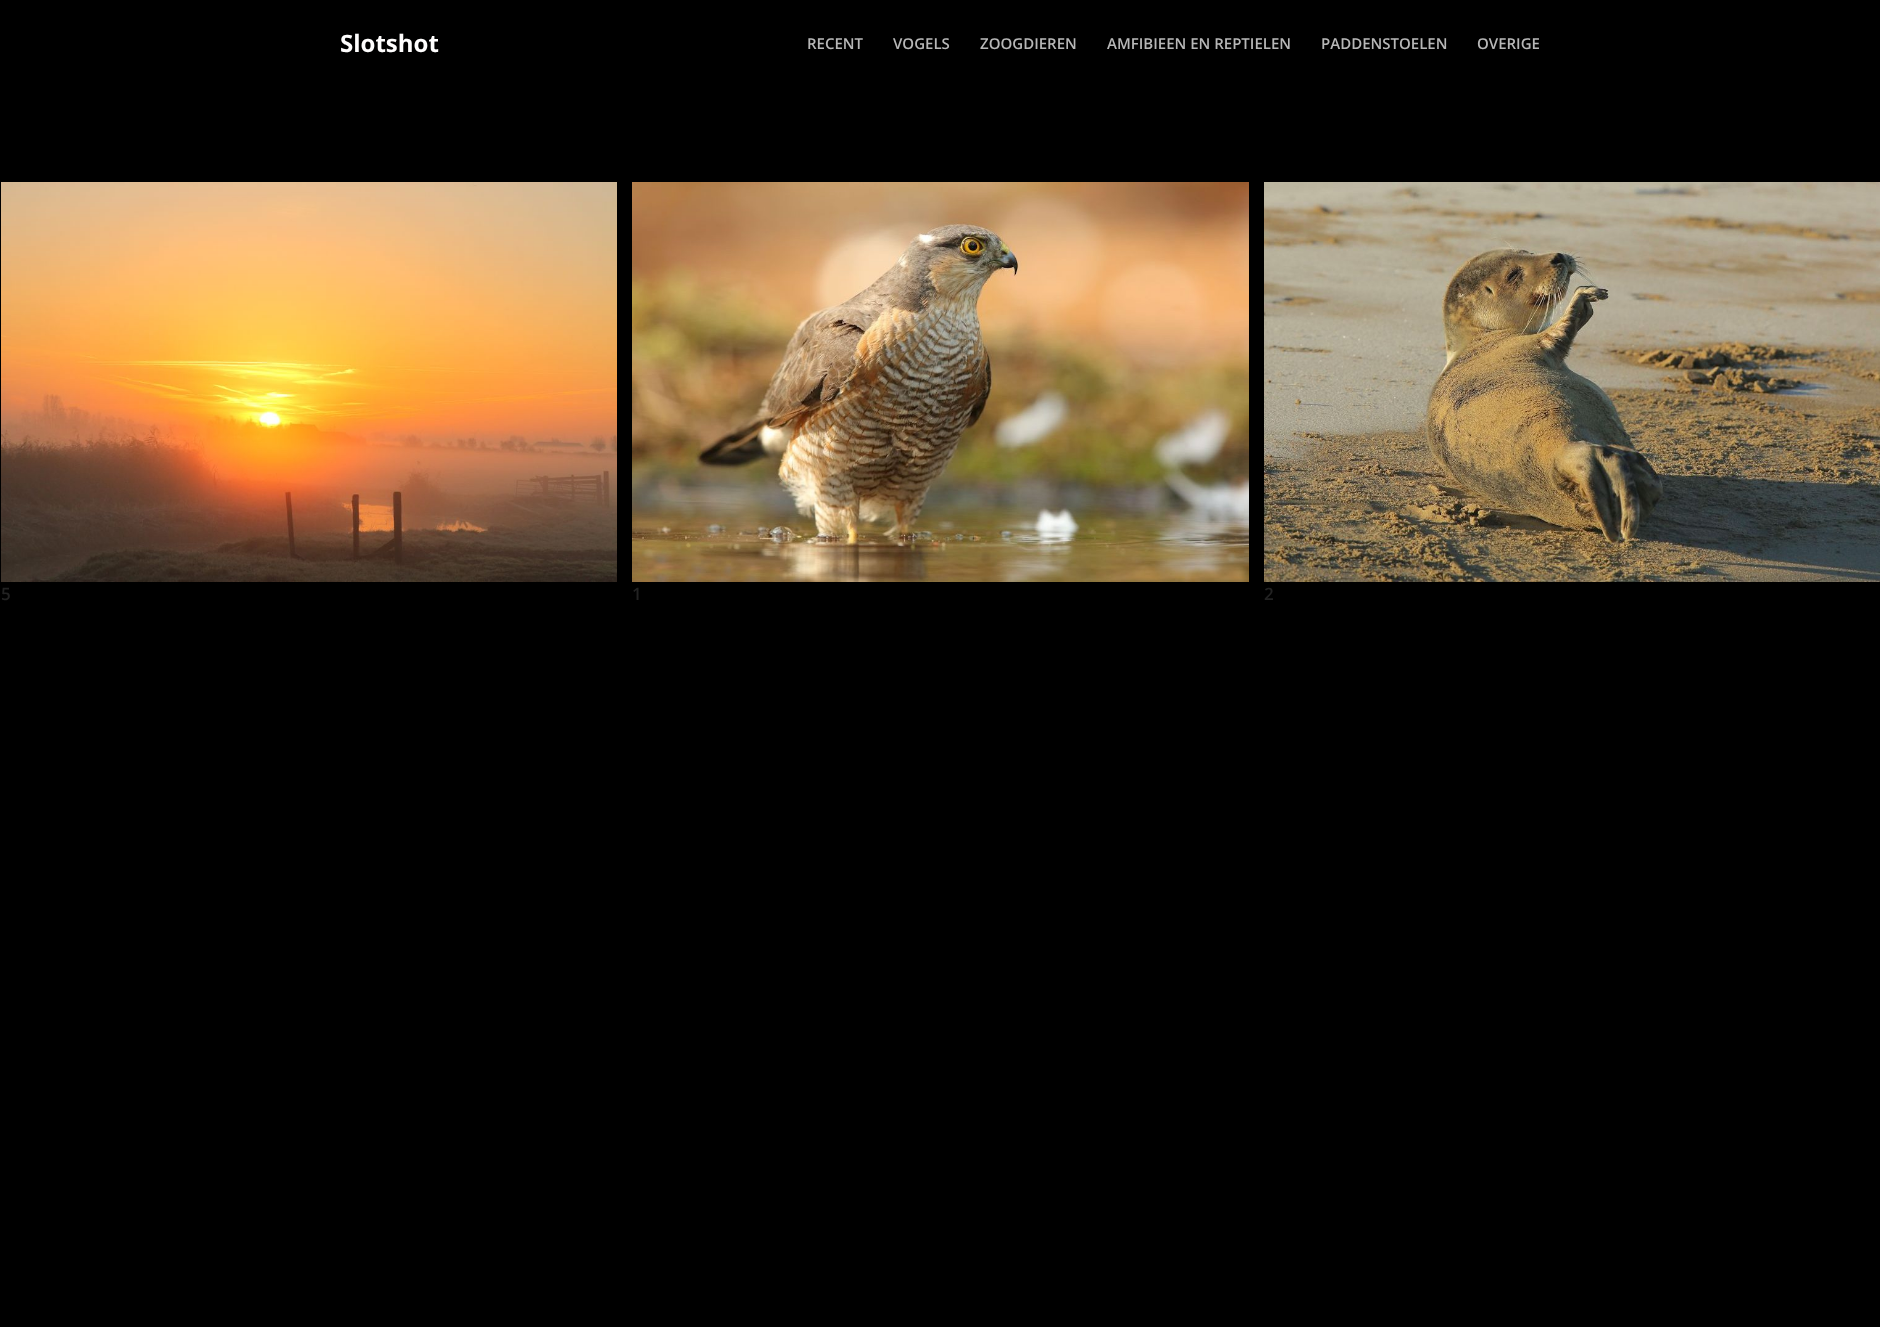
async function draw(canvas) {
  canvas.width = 1880
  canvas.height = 1327
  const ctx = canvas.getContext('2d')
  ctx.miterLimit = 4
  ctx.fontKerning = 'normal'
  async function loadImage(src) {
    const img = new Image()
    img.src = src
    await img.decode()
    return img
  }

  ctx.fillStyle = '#000'
  ctx.fillRect(0, 0, 1880, 1327)
  ctx.font = 'bold 24px Open Sans'
  ctx.fillStyle = '#fffefe'
  ctx.fillText('Slotshot', 340, 52)
  ctx.font = '600 15px Open Sans'
  ctx.fillStyle = '#b7b7b7'
  ctx.fillText('RECENT', 807, 49)
  ctx.fillText('VOGELS', 893, 49)
  ctx.fillText('ZOOGDIEREN', 980, 49)
  ctx.fillText('AMFIBIEEN EN REPTIELEN', 1107, 49)
  ctx.fillText('PADDENSTOELEN', 1321, 49)
  ctx.fillText('OVERIGE', 1477, 49)
  ctx.drawImage(await loadImage('image0.png'), 1, 182, 616, 400)
  ctx.font = '600 17px Open Sans'
  ctx.fillStyle = '#222'
  ctx.fillText('5', 1, 600)
  ctx.drawImage(await loadImage('image1.png'), 632, 182, 617, 400)
  ctx.fillText('1', 632, 600)
  ctx.drawImage(await loadImage('image2.png'), 1264, 182, 616, 400)
  ctx.fillText('2', 1264, 600)
}

draw(document.querySelector('canvas'))
